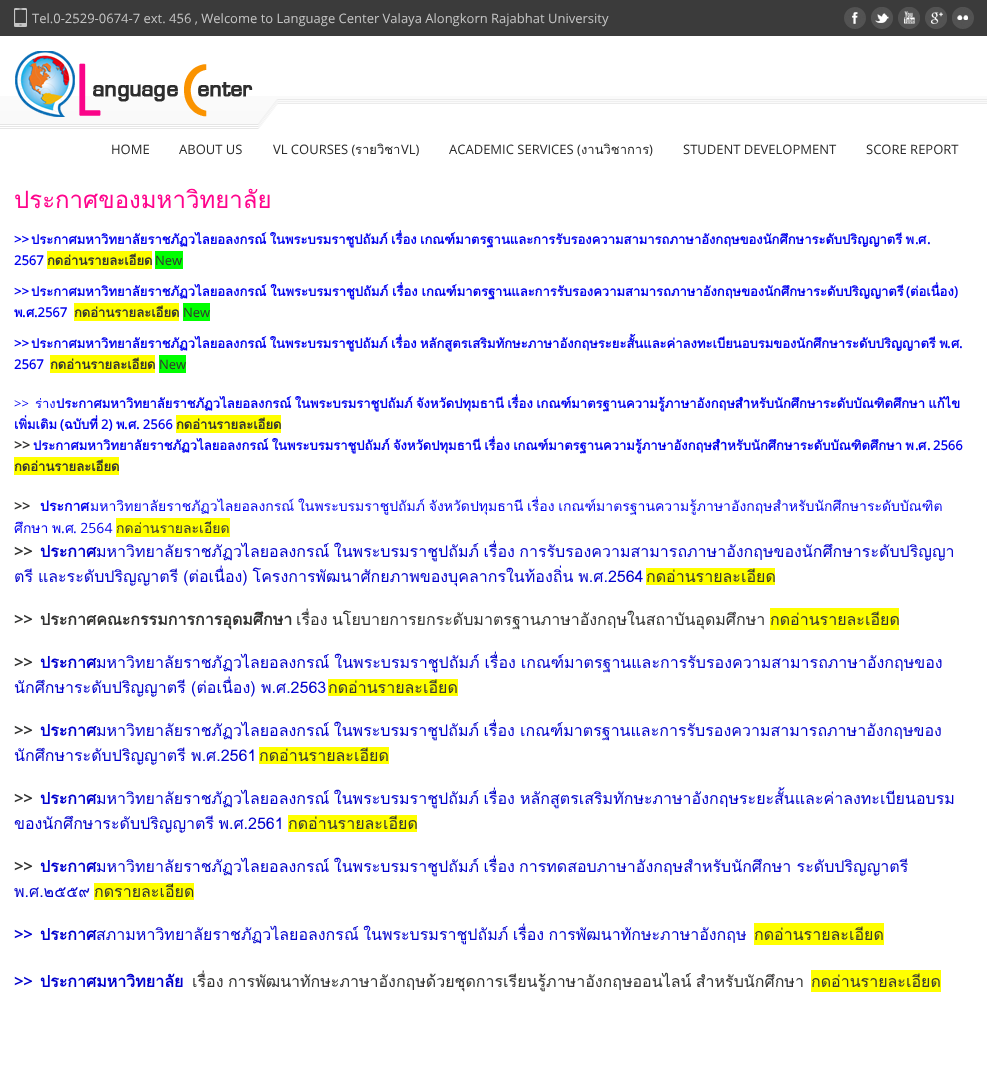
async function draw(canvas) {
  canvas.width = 987
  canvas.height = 1075
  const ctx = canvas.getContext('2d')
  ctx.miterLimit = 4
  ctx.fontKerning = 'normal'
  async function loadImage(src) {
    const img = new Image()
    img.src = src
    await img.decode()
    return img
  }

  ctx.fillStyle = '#fff'
  ctx.fillRect(0, 0, 987, 1075)
  ctx.fillStyle = '#3b3b3b'
  ctx.fillRect(0, 0, 987, 36)
  ctx.drawImage(await loadImage('image0.png'), 14, 8, 13, 19)
  ctx.font = '13px Open Sans'
  ctx.fillStyle = '#c5c5c5'
  ctx.fillText('Tel.0-2529-0674-7 ext. 456 , Welcome to Language Center Valaya Alongkorn Rajabhat University', 32, 23)
  ctx.drawImage(await loadImage('image1.png'), 844, 7, 22, 22)
  ctx.drawImage(await loadImage('image2.png'), 871, 7, 22, 22)
  ctx.drawImage(await loadImage('image3.png'), 898, 7, 22, 22)
  ctx.drawImage(await loadImage('image4.png'), 925, 7, 22, 22)
  ctx.drawImage(await loadImage('image5.png'), 952, 7, 22, 22)
  ctx.drawImage(await loadImage('image6.png'), 0, 96, 987, 33)
  ctx.drawImage(await loadImage('image7.png'), 15, 51, 238, 66)
  ctx.fillStyle = '#292929'
  ctx.fillText('HOME', 111, 154)
  ctx.fillText('ABOUT US', 179, 154)
  ctx.fillText('VL COURSES (', 273, 154)
  ctx.font = '13px Loma'
  ctx.fillText('รายวิชา', 355, 154)
  ctx.font = '13px Open Sans'
  ctx.fillText('VL)', 401, 154)
  ctx.fillText('ACADEMIC SERVICES (', 449, 154)
  ctx.font = '13px Loma'
  ctx.fillText('งานวิชาการ', 581, 154)
  ctx.font = '13px Open Sans'
  ctx.fillText(')', 649, 154)
  ctx.fillText('STUDENT DEVELOPMENT', 683, 154)
  ctx.fillText('SCORE REPORT', 866, 154)
  ctx.font = '24px Loma'
  ctx.fillStyle = '#ff048c'
  ctx.fillText('ประกาศของมหาวิทยาลัย', 14, 208)
  ctx.font = 'bold 13px Open Sans'
  ctx.fillStyle = '#00e'
  ctx.fillText('>>', 14, 244)
  ctx.wordSpacing = '-1px'
  ctx.font = 'bold 13px Loma'
  ctx.fillText('ประกาศมหาวิทยาลัยราชภัฏวไลยอลงกรณ์ ในพระบรมราชูปถัมภ์ เรื่อง เกณฑ์มาตรฐานและการรับรองความสามารถภาษาอังกฤษของนักศึกษาระดับปริญญาตรี พ', 31, 244)
  ctx.wordSpacing = '0px'
  ctx.font = 'bold 13px Open Sans'
  ctx.fillText('.', 915, 244)
  ctx.font = 'bold 13px Loma'
  ctx.fillText('ศ', 918, 244)
  ctx.font = 'bold 13px Open Sans'
  ctx.fillText('.', 927, 244)
  ctx.fillText('2567', 14, 265)
  ctx.fillStyle = '#ff0'
  ctx.fillRect(47, 251, 105, 18)
  ctx.font = 'bold 13px Loma'
  ctx.fillStyle = '#333332'
  ctx.fillText('กดอ่านรายละเอียด', 47, 265)
  ctx.fillStyle = '#0f0'
  ctx.fillRect(155, 251, 28, 18)
  ctx.font = '13px Open Sans'
  ctx.fillStyle = '#333332'
  ctx.fillText('New', 155, 265)
  ctx.wordSpacing = '-0.5px'
  ctx.font = 'bold 13px Loma'
  ctx.fillStyle = '#00e'
  ctx.fillText('ประกาศมหาวิทยาลัยราชภัฏวไลยอลงกรณ์ ในพระบรมราชูปถัมภ์ เรื่อง เกณฑ์มาตรฐานและการรับรองความสามารถภาษาอังกฤษของนักศึกษาระดับปริญญาตรี', 31, 296)
  ctx.wordSpacing = '0px'
  ctx.font = 'bold 13px Open Sans'
  ctx.fillText('(', 906, 296)
  ctx.font = 'bold 13px Loma'
  ctx.fillText('ต่อเนื่อง', 910, 296)
  ctx.font = 'bold 13px Open Sans'
  ctx.fillText('>>', 14, 296)
  ctx.fillText(')', 954, 296)
  ctx.font = 'bold 13px Loma'
  ctx.fillText('พ', 14, 317)
  ctx.font = 'bold 13px Open Sans'
  ctx.fillText('.', 22, 317)
  ctx.font = 'bold 13px Loma'
  ctx.fillText('ศ', 26, 317)
  ctx.font = 'bold 13px Open Sans'
  ctx.fillText('.2567', 34, 317)
  ctx.fillStyle = '#ff0'
  ctx.fillRect(74, 303, 105, 18)
  ctx.font = 'bold 13px Loma'
  ctx.fillStyle = '#333332'
  ctx.fillText('กดอ่านรายละเอียด', 74, 317)
  ctx.fillStyle = '#0f0'
  ctx.fillRect(183, 303, 27, 18)
  ctx.font = '13px Open Sans'
  ctx.fillStyle = '#333332'
  ctx.fillText('New', 183, 317)
  ctx.font = 'bold 13px Open Sans'
  ctx.fillStyle = '#00e'
  ctx.fillText('>>', 14, 348)
  ctx.wordSpacing = '-1px'
  ctx.font = 'bold 13px Loma'
  ctx.fillText('ประกาศมหาวิทยาลัยราชภัฏวไลยอลงกรณ์ ในพระบรมราชูปถัมภ์ เรื่อง หลักสูตรเสริมทักษะภาษาอังกฤษระยะสั้นและค่าลงทะเบียนอบรมของนักศึกษาระดับปริญญาตรี พ', 31, 348)
  ctx.wordSpacing = '0px'
  ctx.font = 'bold 13px Open Sans'
  ctx.fillText('.', 947, 348)
  ctx.font = 'bold 13px Loma'
  ctx.fillText('ศ', 951, 348)
  ctx.font = 'bold 13px Open Sans'
  ctx.fillText('.', 959, 348)
  ctx.fillText('2567', 14, 369)
  ctx.fillStyle = '#ff0'
  ctx.fillRect(50, 355, 105, 18)
  ctx.font = 'bold 13px Loma'
  ctx.fillStyle = '#333332'
  ctx.fillText('กดอ่านรายละเอียด', 50, 369)
  ctx.fillStyle = '#0f0'
  ctx.fillRect(159, 355, 27, 18)
  ctx.font = '13px Open Sans'
  ctx.fillStyle = '#333332'
  ctx.fillText('New', 159, 369)
  ctx.fillStyle = '#00e'
  ctx.fillText('>>', 14, 408)
  ctx.font = '13px Loma'
  ctx.fillText('ร่าง', 35, 408)
  ctx.wordSpacing = '-1px'
  ctx.font = 'bold 13px Loma'
  ctx.fillText('ประกาศมหาวิทยาลัยราชภัฏวไลยอลงกรณ์ ในพระบรมราชูปถัมภ์ จังหวัดปทุมธานี เรื่อง เกณฑ์มาตรฐานความรู้ภาษาอังกฤษสำหรับนักศึกษาระดับบัณฑิตศึกษา แก้ไข', 56, 408)
  ctx.wordSpacing = '0px'
  ctx.fillText('เพิ่มเติม', 14, 429)
  ctx.font = 'bold 13px Open Sans'
  ctx.fillText('(', 60, 429)
  ctx.font = 'bold 13px Loma'
  ctx.fillText('ฉบับที่', 64, 429)
  ctx.font = 'bold 13px Open Sans'
  ctx.fillText('2)', 101, 429)
  ctx.font = 'bold 13px Loma'
  ctx.fillText('พ', 116, 429)
  ctx.font = 'bold 13px Open Sans'
  ctx.fillText('.', 124, 429)
  ctx.font = 'bold 13px Loma'
  ctx.fillText('ศ', 128, 429)
  ctx.font = 'bold 13px Open Sans'
  ctx.fillText('. 2566', 136, 429)
  ctx.fillStyle = '#ff0'
  ctx.fillRect(176, 415, 105, 18)
  ctx.font = 'bold 13px Loma'
  ctx.fillStyle = '#333332'
  ctx.fillText('กดอ่านรายละเอียด', 176, 429)
  ctx.font = 'bold 14px Open Sans'
  ctx.fillText('>>', 14, 450)
  ctx.wordSpacing = '-1px'
  ctx.font = 'bold 13px Loma'
  ctx.fillStyle = '#00e'
  ctx.fillText('ประกาศมหาวิทยาลัยราชภัฏวไลยอลงกรณ์ ในพระบรมราชูปถัมภ์ จังหวัดปทุมธานี เรื่อง เกณฑ์มาตรฐานความรู้ภาษาอังกฤษสำหรับนักศึกษาระดับบัณฑิตศึกษา พ', 33, 450)
  ctx.wordSpacing = '0px'
  ctx.font = 'bold 13px Open Sans'
  ctx.fillText('.', 915, 450)
  ctx.font = 'bold 13px Loma'
  ctx.fillText('ศ', 918, 450)
  ctx.font = 'bold 13px Open Sans'
  ctx.fillText('.', 927, 450)
  ctx.fillText('2566', 933, 450)
  ctx.fillStyle = '#ff0'
  ctx.fillRect(14, 457, 105, 18)
  ctx.font = 'bold 13px Loma'
  ctx.fillStyle = '#333332'
  ctx.fillText('กดอ่านรายละเอียด', 14, 471)
  ctx.font = 'bold 14px Open Sans'
  ctx.fillText('>>', 14, 511)
  ctx.font = 'bold 14px Loma'
  ctx.fillStyle = '#00e'
  ctx.fillText('ประกาศ', 40, 511)
  ctx.wordSpacing = '-1px'
  ctx.font = '14px Loma'
  ctx.fillText('มหาวิทยาลัยราชภัฏวไลยอลงกรณ์ ในพระบรมราชูปถัมภ์ จังหวัดปทุมธานี เรื่อง เกณฑ์มาตรฐานความรู้ภาษาอังกฤษสำหรับนักศึกษาระดับบัณฑิต', 90, 511)
  ctx.wordSpacing = '0px'
  ctx.fillText('ศึกษา', 14, 533)
  ctx.fillText('พ', 52, 533)
  ctx.font = '14px Open Sans'
  ctx.fillText('.', 61, 533)
  ctx.font = '14px Loma'
  ctx.fillText('ศ', 65, 533)
  ctx.font = '14px Open Sans'
  ctx.fillText('. 2564', 73, 533)
  ctx.fillStyle = '#ff0'
  ctx.fillRect(116, 518, 114, 19)
  ctx.font = '14px Loma'
  ctx.fillStyle = '#333332'
  ctx.fillText('กดอ่านรายละเอียด', 116, 533)
  ctx.font = 'bold 16px Open Sans'
  ctx.fillText('>>', 14, 557)
  ctx.font = 'bold 16px Loma'
  ctx.fillStyle = '#0000cd'
  ctx.fillText('ประกาศ', 40, 557)
  ctx.wordSpacing = '-1px'
  ctx.font = '16px Loma'
  ctx.fillText('มหาวิทยาลัยราชภัฏวไลยอลงกรณ์ ในพระบรมราชูปถัมภ์ เรื่อง การรับรองความสามารถภาษาอังกฤษของนักศึกษาระดับปริญญา', 96, 557)
  ctx.wordSpacing = '-0.5px'
  ctx.fillText('ตรี และระดับปริญญาตรี (ต่อเนื่อง) โครงการพัฒนาศักยภาพของบุคลากรในท้องถิ่น พ.ศ.2564', 14, 582)
  ctx.fillStyle = '#ff0'
  ctx.fillRect(646, 568, 129, 17)
  ctx.wordSpacing = '0px'
  ctx.fillStyle = '#333332'
  ctx.fillText('กดอ่านรายละเอียด', 646, 582)
  ctx.font = 'bold 16px Open Sans'
  ctx.fillText('>>', 14, 625)
  ctx.font = 'bold 16px Loma'
  ctx.fillText('ประกาศคณะกรรมการการอุดมศึกษา', 40, 625)
  ctx.wordSpacing = '-1px'
  ctx.font = '16px Loma'
  ctx.fillText('เรื่อง นโยบายการยกระดับมาตรฐานภาษาอังกฤษในสถาบันอุดมศึกษา', 296, 625)
  ctx.fillStyle = '#ff0'
  ctx.fillRect(770, 608, 129, 22)
  ctx.wordSpacing = '0px'
  ctx.fillStyle = '#333332'
  ctx.fillText('กดอ่านรายละเอียด', 770, 625)
  ctx.font = 'bold 16px Open Sans'
  ctx.fillText('>>', 14, 668)
  ctx.font = 'bold 16px Loma'
  ctx.fillStyle = '#0000cd'
  ctx.fillText('ประกาศ', 40, 668)
  ctx.wordSpacing = '-0.5px'
  ctx.font = '16px Loma'
  ctx.fillText('มหาวิทยาลัยราชภัฏวไลยอลงกรณ์ ในพระบรมราชูปถัมภ์ เรื่อง เกณฑ์มาตรฐานและการรับรองความสามารถภาษาอังกฤษของ', 96, 668)
  ctx.wordSpacing = '0px'
  ctx.fillText('นักศึกษาระดับปริญญาตรี (ต่อเนื่อง) พ.ศ.2563', 14, 693)
  ctx.fillStyle = '#ff0'
  ctx.fillRect(328, 679, 130, 17)
  ctx.fillStyle = '#333332'
  ctx.fillText('กดอ่านรายละเอียด', 328, 693)
  ctx.font = 'bold 16px Open Sans'
  ctx.fillText('>>', 14, 736)
  ctx.font = 'bold 16px Loma'
  ctx.fillStyle = '#0000cd'
  ctx.fillText('ประกาศ', 40, 736)
  ctx.wordSpacing = '-1px'
  ctx.font = '16px Loma'
  ctx.fillText('มหาวิทยาลัยราชภัฏวไลยอลงกรณ์ ในพระบรมราชูปถัมภ์ เรื่อง', 96, 736)
  ctx.wordSpacing = '0px'
  ctx.fillText('เกณฑ์มาตรฐานและการรับรองความสามารถภาษาอังกฤษของ', 520, 736)
  ctx.fillText('นักศึกษาระดับปริญญาตรี พ.ศ.2561', 14, 761)
  ctx.fillStyle = '#ff0'
  ctx.fillRect(259, 747, 130, 17)
  ctx.fillStyle = '#333332'
  ctx.fillText('กดอ่านรายละเอียด', 259, 761)
  ctx.font = 'bold 16px Open Sans'
  ctx.fillText('>>', 14, 804)
  ctx.font = 'bold 16px Loma'
  ctx.fillStyle = '#0000cd'
  ctx.fillText('ประกาศ', 40, 804)
  ctx.wordSpacing = '-1px'
  ctx.font = '16px Loma'
  ctx.fillText('มหาวิทยาลัยราชภัฏวไลยอลงกรณ์ ในพระบรมราชูปถัมภ์ เรื่อง', 96, 804)
  ctx.wordSpacing = '0px'
  ctx.fillText('หลักสูตรเสริมทักษะภาษาอังกฤษระยะสั้นและค่าลงทะเบียนอบรม', 520, 804)
  ctx.wordSpacing = '-1px'
  ctx.fillText('ของนักศึกษาระดับปริญญาตรี พ.ศ.2561', 14, 829)
  ctx.fillStyle = '#ff0'
  ctx.fillRect(288, 815, 129, 17)
  ctx.wordSpacing = '0px'
  ctx.fillStyle = '#333332'
  ctx.fillText('กดอ่านรายละเอียด', 288, 829)
  ctx.font = 'bold 16px Open Sans'
  ctx.fillText('>>', 14, 872)
  ctx.font = 'bold 16px Loma'
  ctx.fillStyle = '#0000cd'
  ctx.fillText('ประกาศ', 40, 872)
  ctx.wordSpacing = '-1px'
  ctx.font = '16px Loma'
  ctx.fillText('มหาวิทยาลัยราชภัฏวไลยอลงกรณ์ ในพระบรมราชูปถัมภ์ เรื่อง', 96, 872)
  ctx.wordSpacing = '0px'
  ctx.fillText('การทดสอบภาษาอังกฤษสำหรับนักศึกษา ระดับปริญญาตรี', 519, 872)
  ctx.fillText('พ.ศ.๒๕๕๙', 14, 897)
  ctx.fillStyle = '#ff0'
  ctx.fillRect(94, 883, 100, 17)
  ctx.fillStyle = '#333332'
  ctx.fillText('กดรายละเอียด', 94, 897)
  ctx.font = 'bold 16px Open Sans'
  ctx.fillStyle = '#0000cd'
  ctx.fillText('>>', 14, 940)
  ctx.font = 'bold 16px Loma'
  ctx.fillText('ประกาศ', 40, 940)
  ctx.wordSpacing = '-1px'
  ctx.font = '16px Loma'
  ctx.fillText('สภามหาวิทยาลัยราชภัฏวไลยอลงกรณ์ ในพระบรมราชูปถัมภ์ เรื่อง การพัฒนาทักษะภาษาอังกฤษ', 96, 940)
  ctx.fillStyle = '#ff0'
  ctx.fillRect(754, 923, 130, 22)
  ctx.wordSpacing = '0px'
  ctx.fillStyle = '#333332'
  ctx.fillText('กดอ่านรายละเอียด', 754, 940)
  ctx.font = 'bold 16px Open Sans'
  ctx.fillStyle = '#0000cd'
  ctx.fillText('>>', 14, 987)
  ctx.font = 'bold 16px Loma'
  ctx.fillText('ประกาศมหาวิทยาลัย', 40, 987)
  ctx.wordSpacing = '-1px'
  ctx.font = '16px Loma'
  ctx.fillStyle = '#333332'
  ctx.fillText('เรื่อง การพัฒนาทักษะภาษาอังกฤษด้วยชุดการเรียนรู้ภาษาอังกฤษออนไลน์ สำหรับนักศึกษา', 192, 987)
  ctx.fillStyle = '#ff0'
  ctx.fillRect(811, 970, 130, 22)
  ctx.wordSpacing = '0px'
  ctx.fillStyle = '#333332'
  ctx.fillText('กดอ่านรายละเอียด', 811, 987)
}

draw(document.querySelector('canvas'))
